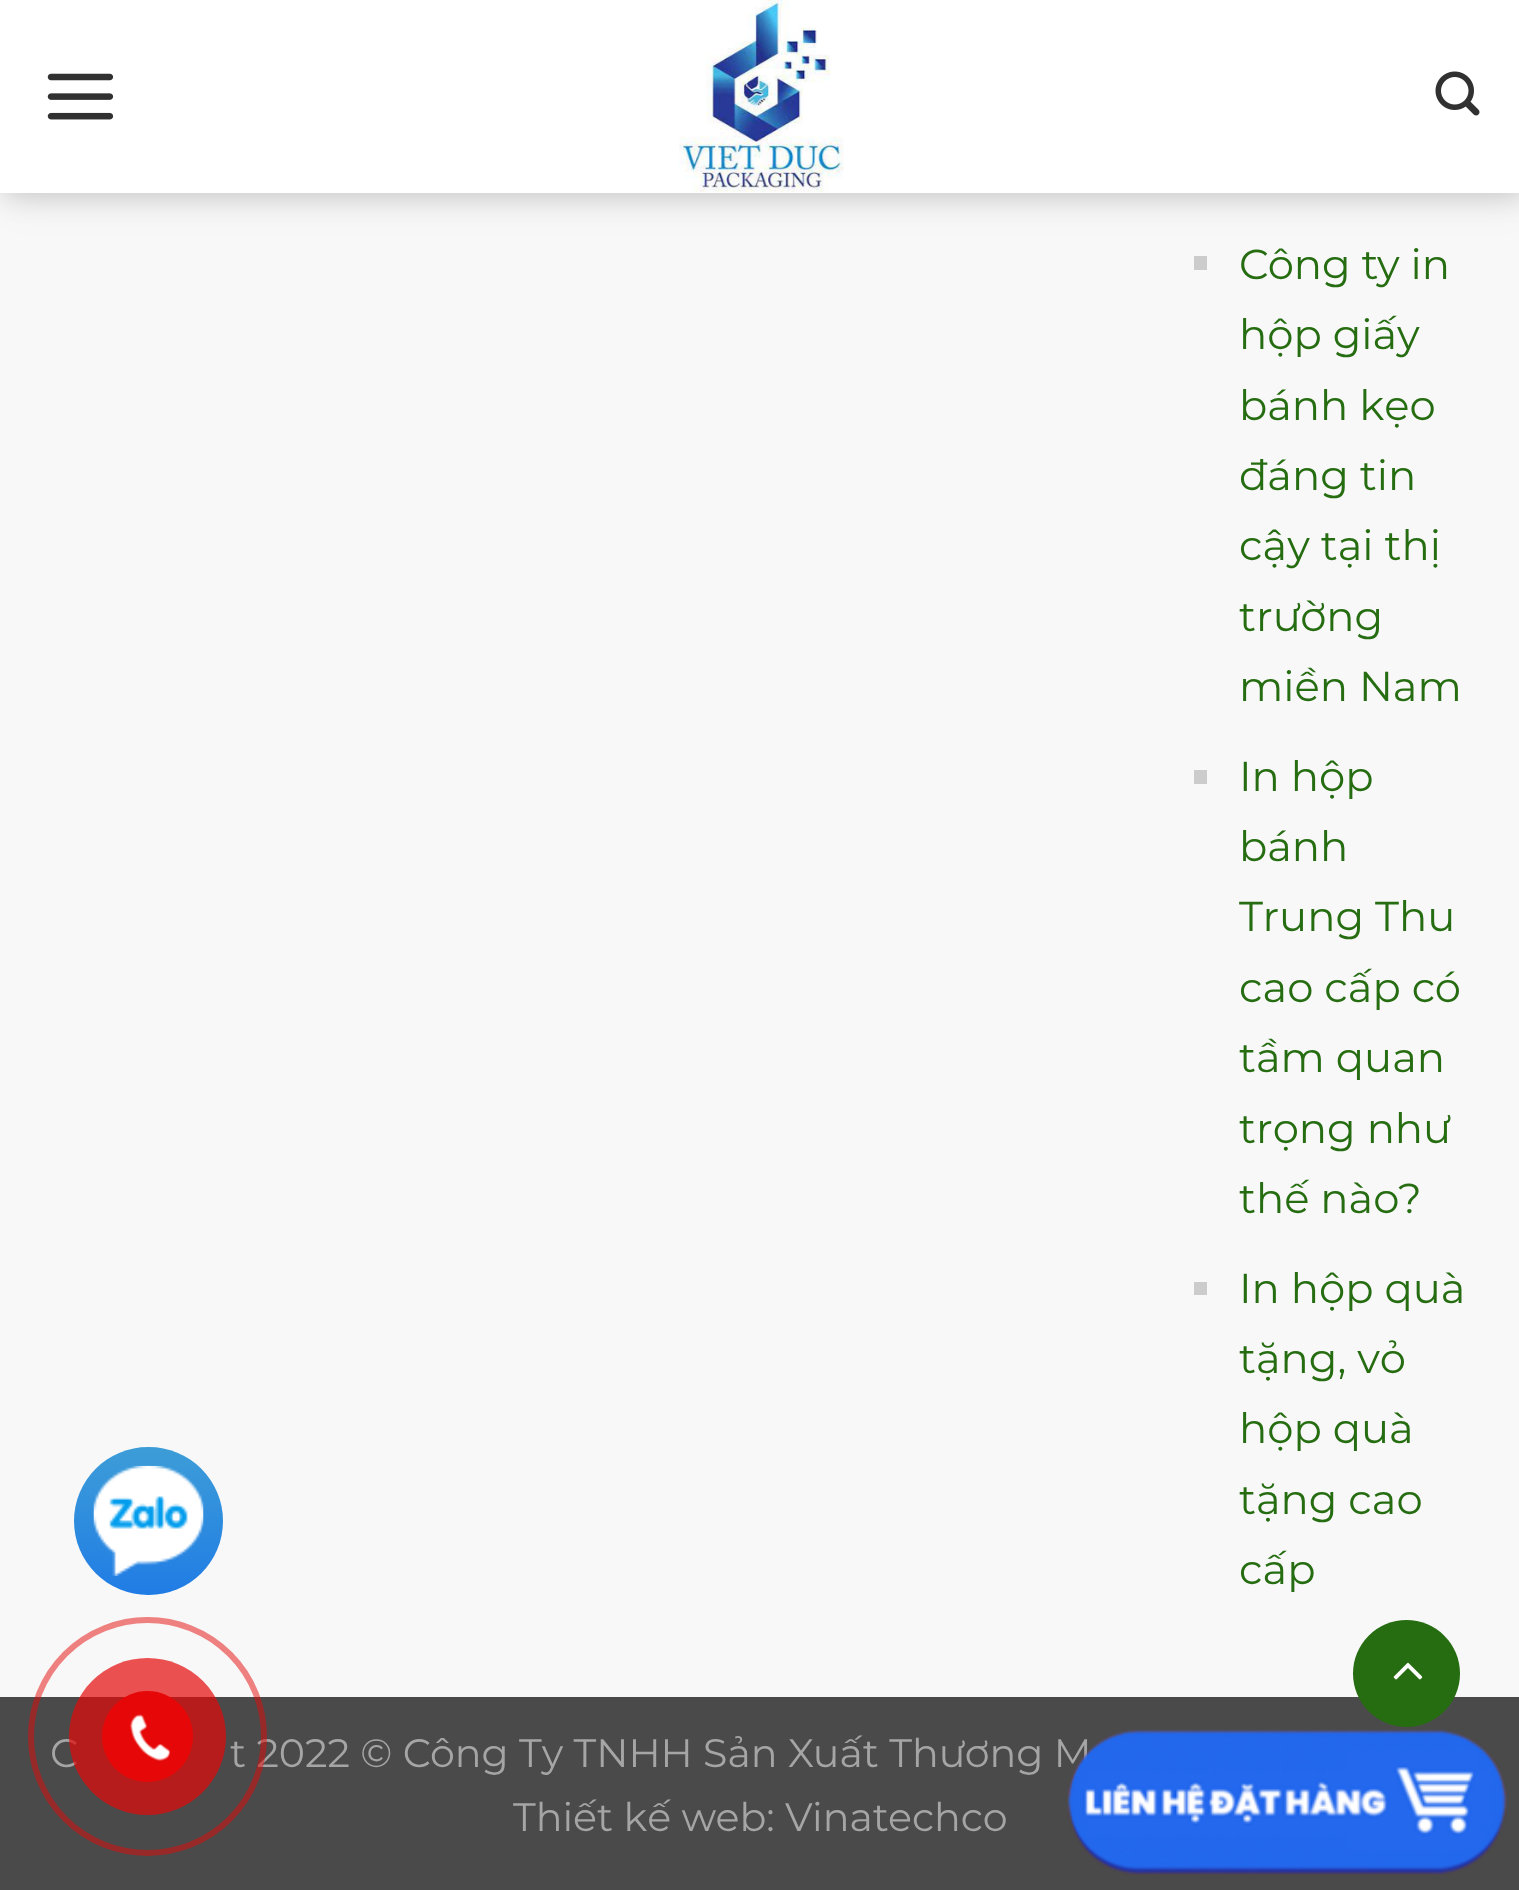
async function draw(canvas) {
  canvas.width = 1519
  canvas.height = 1890
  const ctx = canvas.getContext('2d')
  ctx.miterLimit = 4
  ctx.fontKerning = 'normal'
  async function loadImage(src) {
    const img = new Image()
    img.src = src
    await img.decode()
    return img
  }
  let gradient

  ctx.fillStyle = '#4a4a4a'
  ctx.fillRect(0, 0, 1519, 1890)
  ctx.fillStyle = '#f8f8f8'
  ctx.fillRect(0, 0, 1519, 1697)
  ctx.save()
  ctx.beginPath()
  ctx.moveTo(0, 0)
  ctx.lineTo(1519, 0)
  ctx.lineTo(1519, 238)
  ctx.lineTo(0, 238)
  ctx.closePath()
  ctx.moveTo(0, 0)
  ctx.lineTo(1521, 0)
  ctx.lineTo(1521, 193)
  ctx.lineTo(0, 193)
  ctx.closePath()
  ctx.clip('evenodd')
  ctx.fillStyle = '#00000026'
  ctx.filter = 'blur(14px)'
  ctx.beginPath()
  ctx.rect(3, 3, 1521, 192)
  ctx.fill()
  ctx.filter = 'none'
  ctx.restore()
  ctx.fillStyle = '#ffffffe6'
  ctx.fillRect(0, 0, 1519, 193)
  ctx.fillStyle = '#ccc'
  ctx.fillRect(1194, 256, 13, 14)
  ctx.save()
  ctx.beginPath()
  ctx.moveTo(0, 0)
  ctx.lineTo(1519, 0)
  ctx.lineTo(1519, 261)
  ctx.lineTo(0, 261)
  ctx.closePath()
  ctx.moveTo(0, 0)
  ctx.lineTo(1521, 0)
  ctx.lineTo(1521, 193)
  ctx.lineTo(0, 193)
  ctx.closePath()
  ctx.clip('evenodd')
  ctx.fillStyle = '#00000014'
  ctx.filter = 'blur(20.5px)'
  ctx.beginPath()
  ctx.rect(6, 6, 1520, 192)
  ctx.fill()
  ctx.filter = 'none'
  ctx.restore()
  ctx.drawImage(await loadImage('image0.png'), 47, 73, 67, 47)
  ctx.drawImage(await loadImage('image1.png'), 679, 0, 165, 192)
  ctx.drawImage(await loadImage('image2.png'), 1435, 71, 45, 45)
  ctx.font = '41.75px Montserrat'
  ctx.fillStyle = '#266d12'
  ctx.fillText('Công ty in', 1239, 279)
  ctx.fillText('hộp giấy', 1239, 349)
  ctx.fillText('bánh kẹo', 1239, 420)
  ctx.fillText('đáng tin', 1239, 490)
  ctx.fillText('cậy tại thị', 1239, 560)
  ctx.fillText('trường', 1239, 631)
  ctx.fillText('miền Nam', 1239, 701)
  ctx.fillStyle = '#ccc'
  ctx.fillRect(1194, 770, 13, 14)
  ctx.fillStyle = '#266d12'
  ctx.fillText('In hộp', 1239, 791)
  ctx.fillText('bánh', 1239, 861)
  ctx.fillText('Trung Thu', 1239, 931)
  ctx.fillText('cao cấp có', 1239, 1002)
  ctx.fillText('tầm quan', 1239, 1072)
  ctx.fillText('trọng như', 1239, 1143)
  ctx.fillText('thế nào?', 1239, 1213)
  ctx.fillStyle = '#ccc'
  ctx.fillRect(1194, 1282, 13, 13)
  ctx.fillStyle = '#266d12'
  ctx.fillText('In hộp quà', 1239, 1303)
  ctx.fillText('tặng, vỏ', 1239, 1373)
  ctx.fillText('hộp quà', 1239, 1443)
  ctx.fillText('tặng cao', 1239, 1514)
  ctx.fillText('cấp', 1239, 1584)
  ctx.beginPath()
  ctx.arc(1406.5, 1673.5, 53.5, 0, 2 * Math.PI)
  ctx.fill()
  ctx.drawImage(await loadImage('image3.png'), 1393, 1662, 30, 18)
  ctx.font = '39.6px Montserrat'
  ctx.fillStyle = '#a5a5a5'
  ctx.fillText('C', 50, 1767)
  ctx.fillText('t 2022 © Công Ty TNHH Sản Xuất Thương M', 230, 1767)
  ctx.fillText('Thiết kế web: Vinatechco', 513, 1831)
  gradient = ctx.createLinearGradient(149, 1447, 149, 1595)
  gradient.addColorStop(0, '#3d9dd7')
  gradient.addColorStop(1, '#207ce5')
  ctx.fillStyle = gradient
  ctx.beginPath()
  ctx.roundRect(74, 1447, 149, 148, 74)
  ctx.fill()
  ctx.drawImage(await loadImage('image4.png'), 93, 1465, 111, 111)
  ctx.beginPath()
  ctx.arc(147.5, 1736.5, 116.5, 0, 2 * Math.PI)
  ctx.strokeStyle = '#e6080880'
  ctx.lineWidth = 6
  ctx.stroke()
  ctx.fillStyle = '#e60808b3'
  ctx.beginPath()
  ctx.arc(147.5, 1736.5, 78.5, 0, 2 * Math.PI)
  ctx.fill()
  ctx.fillStyle = '#e60808'
  ctx.beginPath()
  ctx.arc(147.5, 1736.5, 45.5, 0, 2 * Math.PI)
  ctx.fill()
  ctx.drawImage(await loadImage('image5.png'), 130, 1714, 40, 47)
  ctx.drawImage(await loadImage('image6.png'), 1067, 1729, 440, 146)
}

draw(document.querySelector('canvas'))
